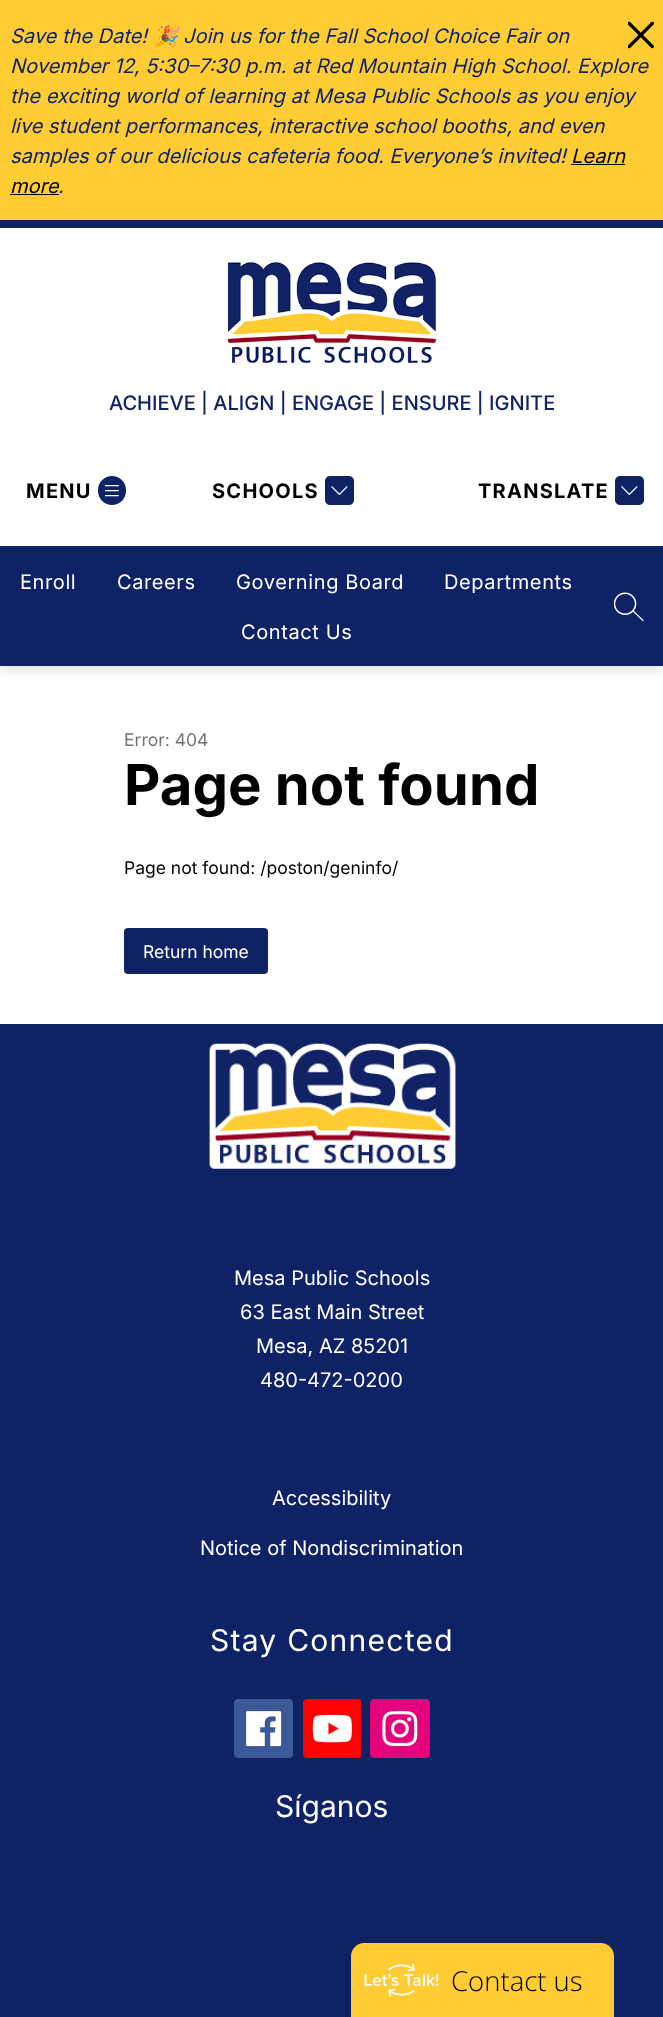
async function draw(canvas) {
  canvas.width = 663
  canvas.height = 2017
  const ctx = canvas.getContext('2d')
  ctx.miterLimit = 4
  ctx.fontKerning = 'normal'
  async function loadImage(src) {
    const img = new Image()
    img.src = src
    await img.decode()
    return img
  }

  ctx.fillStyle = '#fff'
  ctx.fillRect(0, 0, 663, 2017)
  ctx.fillStyle = '#fc3'
  ctx.fillRect(0, 0, 663, 220)
  ctx.drawImage(await loadImage('image0.png'), 628, 21, 26, 28)
  ctx.font = 'italic 20px Inter'
  ctx.fillStyle = '#102266'
  ctx.fillText('Save the Date!', 10, 43)
  ctx.font = 'italic 20px Noto Color Emoji'
  ctx.fillText('🎉', 153, 43)
  ctx.font = 'italic 20px Inter'
  ctx.fillText('Join us for the Fall School Choice Fair on', 183, 43)
  ctx.fillText('November 12, 5:30–7:30 p.m. at Red Mountain High School. Explore', 10, 73)
  ctx.fillText('the exciting world of learning at Mesa Public Schools as you enjoy', 10, 103)
  ctx.fillText('live student performances, interactive school booths, and even', 10, 133)
  ctx.fillText('samples of our delicious cafeteria food. Everyone’s invited!', 10, 163)
  ctx.fillStyle = '#000'
  ctx.fillText('Learn', 571, 163)
  ctx.fillRect(571, 164, 54, 1)
  ctx.fillText('more', 10, 193)
  ctx.fillRect(10, 194, 49, 1)
  ctx.fillStyle = '#102266'
  ctx.fillText('.', 58, 193)
  ctx.save()
  ctx.beginPath()
  ctx.rect(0, 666, 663, 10)
  ctx.clip()
  ctx.fillStyle = '#0000001a'
  ctx.filter = 'blur(6px)'
  ctx.beginPath()
  ctx.rect(0, 225, 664, 446)
  ctx.fill()
  ctx.filter = 'none'
  ctx.restore()
  ctx.fillRect(0, 220, 663, 8)
  ctx.drawImage(await loadImage('image1.png'), 227, 262, 210, 101)
  ctx.font = '500 20px Inter'
  ctx.fillText('ACHIEVE | ALIGN | ENGAGE | ENSURE | IGNITE', 109, 410)
  ctx.letterSpacing = '1.25px'
  ctx.font = 'bold 20px Inter'
  ctx.fillStyle = '#000'
  ctx.fillText('MENU', 26, 498)
  ctx.drawImage(await loadImage('image2.png'), 98, 476, 28, 29)
  ctx.fillText('SCHOOLS', 212, 498)
  ctx.drawImage(await loadImage('image3.png'), 325, 476, 29, 29)
  ctx.fillText('TRANSLATE', 478, 498)
  ctx.drawImage(await loadImage('image3.png'), 615, 476, 29, 29)
  ctx.fillStyle = '#102266'
  ctx.fillRect(0, 546, 663, 120)
  ctx.letterSpacing = '0.6px'
  ctx.font = '20px Inter'
  ctx.fillStyle = '#fff'
  ctx.fillText('Enroll', 20, 589)
  ctx.fillText('Careers', 117, 589)
  ctx.fillText('Governing Board', 236, 589)
  ctx.fillText('Departments', 444, 589)
  ctx.fillText('Contact Us', 241, 639)
  ctx.drawImage(await loadImage('image4.png'), 614, 592, 30, 29)
  ctx.letterSpacing = '0px'
  ctx.font = '17.5px Inter'
  ctx.fillStyle = '#747474'
  ctx.fillText('Error: 404', 124, 746)
  ctx.font = 'bold 56.25px Inter'
  ctx.fillStyle = '#000'
  ctx.fillText('Page not found', 124, 805)
  ctx.font = '17.5px Inter'
  ctx.fillText('Page not found: /poston/geninfo/', 124, 874)
  ctx.fillStyle = '#102266'
  ctx.beginPath()
  ctx.roundRect(124, 928, 144, 46, 4)
  ctx.fill()
  ctx.fillStyle = '#fff'
  ctx.fillText('Return home', 143, 958)
  ctx.fillStyle = '#102266'
  ctx.fillRect(0, 1024, 663, 993)
  ctx.drawImage(await loadImage('image5.png'), 209, 1043, 247, 126)
  ctx.font = '20px Inter'
  ctx.fillStyle = '#fff'
  ctx.fillText('Mesa Public Schools', 234, 1285)
  ctx.fillText('63 East Main Street', 240, 1319)
  ctx.fillText('Mesa, AZ 85201', 256, 1353)
  ctx.fillText('480-472-0200', 260, 1387)
  ctx.fillText('Accessibility', 272, 1505)
  ctx.fillText('Notice of Nondiscrimination', 200, 1555)
  ctx.letterSpacing = '1.25px'
  ctx.font = '30px Inter'
  ctx.fillText('Stay Connected', 210, 1651)
  ctx.drawImage(await loadImage('image6.png'), 234, 1699, 59, 59)
  ctx.drawImage(await loadImage('image7.png'), 303, 1699, 58, 59)
  ctx.drawImage(await loadImage('image8.png'), 370, 1699, 60, 59)
  ctx.letterSpacing = '0px'
  ctx.fillText('Síganos', 275, 1817)
  ctx.fillStyle = '#00000038'
  ctx.filter = 'blur(0.5px)'
  ctx.beginPath()
  ctx.roundRect(351, 1943, 263, 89, 13)
  ctx.fill()
  ctx.filter = 'none'
  ctx.fillStyle = '#fc3'
  ctx.beginPath()
  ctx.moveTo(364, 1943)
  ctx.lineTo(601, 1943)
  ctx.bezierCurveTo(608, 1943, 614, 1949, 614, 1956)
  ctx.lineTo(614, 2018)
  ctx.lineTo(351, 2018)
  ctx.lineTo(351, 1956)
  ctx.bezierCurveTo(351, 1949, 357, 1943, 364, 1943)
  ctx.closePath()
  ctx.fill()
  ctx.drawImage(await loadImage('image9.png'), 364, 1963, 75, 34)
  ctx.font = '300 27.5px Open Sans'
  ctx.fillStyle = '#000'
  ctx.fillText('Contact us', 451, 1991)
}

draw(document.querySelector('canvas'))
